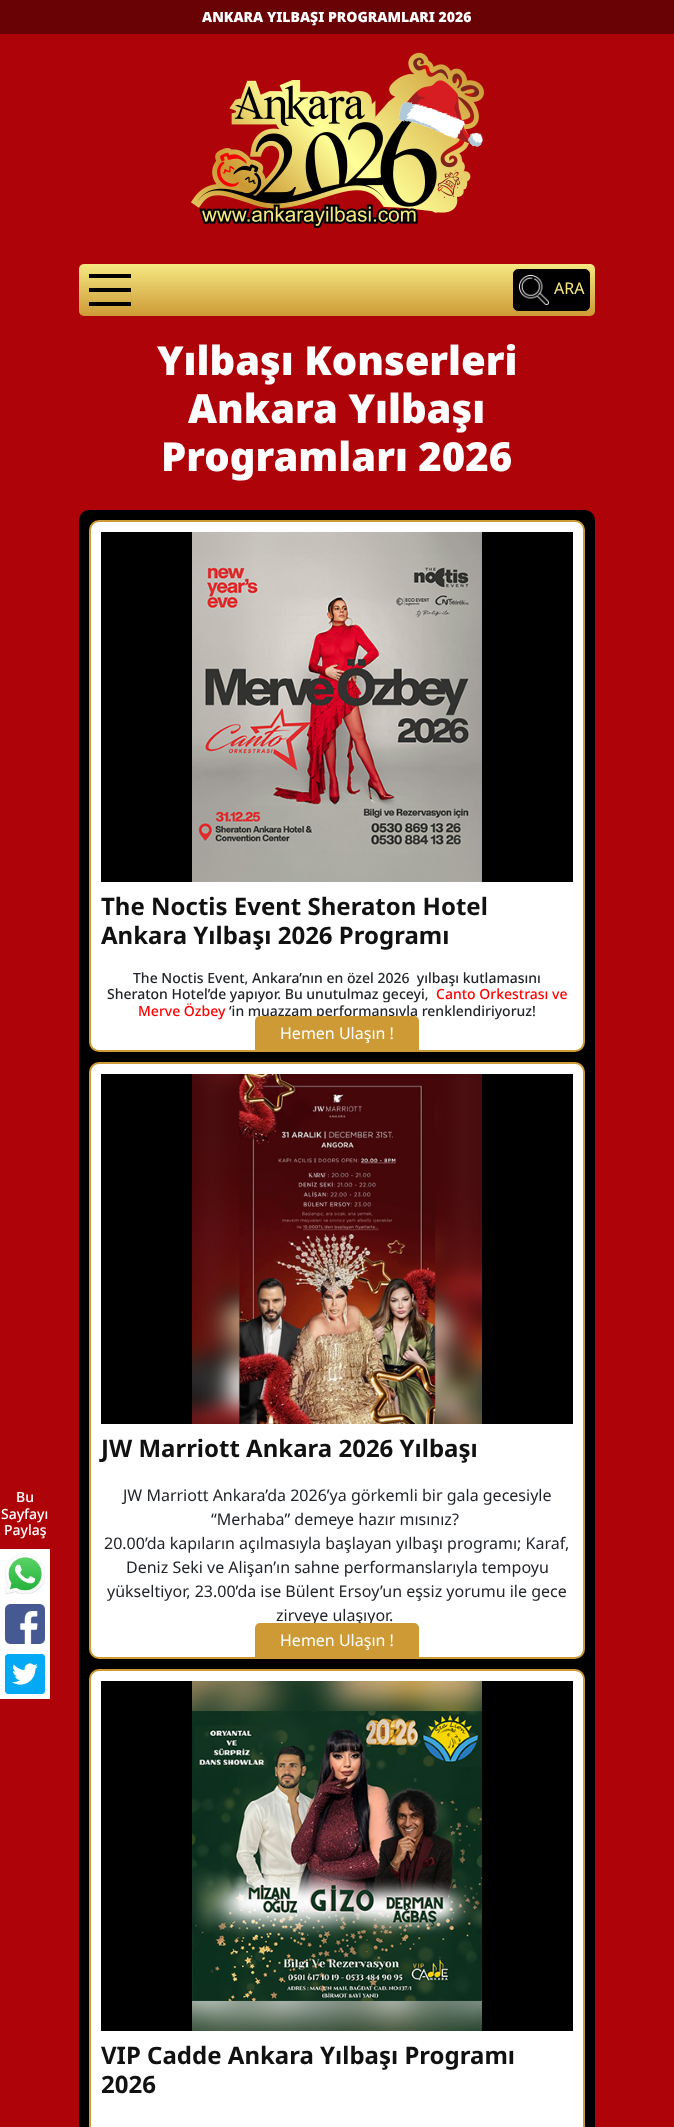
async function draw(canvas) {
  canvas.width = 674
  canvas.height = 2127
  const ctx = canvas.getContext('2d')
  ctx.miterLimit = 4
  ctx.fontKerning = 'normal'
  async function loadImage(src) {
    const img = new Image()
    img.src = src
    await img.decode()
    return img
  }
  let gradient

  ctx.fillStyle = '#ae0409'
  ctx.fillRect(0, 0, 674, 2127)
  ctx.fillStyle = '#680205'
  ctx.fillRect(0, 0, 674, 34)
  ctx.font = '900 14px Noto Sans'
  ctx.fillStyle = '#fff'
  ctx.fillText('ANKARA YILBAŞI PROGRAMLARI 2026', 202, 22)
  ctx.drawImage(await loadImage('image0.png'), 191, 52, 293, 176)
  gradient = ctx.createLinearGradient(337, 264, 337, 316)
  gradient.addColorStop(0, '#f5e882')
  gradient.addColorStop(1, '#cd9a36')
  ctx.fillStyle = gradient
  ctx.beginPath()
  ctx.roundRect(79, 264, 516, 52, 5)
  ctx.fill()
  ctx.fillStyle = '#000'
  ctx.fillRect(89, 274, 42, 4)
  ctx.fillRect(89, 288, 42, 4)
  ctx.fillRect(89, 302, 42, 4)
  ctx.beginPath()
  ctx.roundRect(513.5, 269.5, 76, 41, 4.5)
  ctx.fill()
  ctx.strokeStyle = '#000'
  ctx.stroke()
  ctx.drawImage(await loadImage('image1.png'), 519, 275, 30, 30)
  ctx.font = '16px Noto Sans'
  ctx.fillStyle = '#f5e882'
  ctx.fillText('ARA', 554, 294)
  ctx.font = '500 14px Noto Sans'
  ctx.fillStyle = '#fff'
  ctx.fillText('Bu', 16, 1502)
  ctx.fillText('Sayfayı', 1, 1519)
  ctx.fillText('Paylaş', 4, 1535)
  ctx.fillRect(0, 1549, 50, 150)
  ctx.drawImage(await loadImage('image2.png'), 5, 1554, 40, 40)
  ctx.drawImage(await loadImage('image3.png'), 5, 1604, 40, 40)
  ctx.drawImage(await loadImage('image4.png'), 5, 1654, 40, 40)
  ctx.font = '900 40px Noto Sans'
  ctx.fillText('Yılbaşı Konserleri', 157, 375)
  ctx.fillText('Ankara Yılbaşı', 188, 423)
  ctx.fillText('Programları 2026', 161, 471)
  ctx.fillStyle = '#000'
  ctx.beginPath()
  ctx.roundRect(79, 510, 516, 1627, 10)
  ctx.fill()
  ctx.fillStyle = '#fff'
  ctx.beginPath()
  ctx.roundRect(90, 521, 494, 530, 9)
  ctx.fill()
  ctx.strokeStyle = '#cd9a36'
  ctx.lineWidth = 2
  ctx.stroke()
  ctx.fillStyle = '#000'
  ctx.fillRect(101, 532, 472, 350)
  ctx.drawImage(await loadImage('image5.png'), 192, 532, 290, 350)
  ctx.font = 'bold 24px Noto Sans'
  ctx.fillStyle = '#111'
  ctx.fillText('The Noctis Event Sheraton Hotel', 101, 915)
  ctx.fillText('Ankara Yılbaşı 2026 Programı', 101, 944)
  ctx.font = '500 14px Noto Sans'
  ctx.fillStyle = '#212529'
  ctx.fillText('The Noctis Event, Ankara’nın en özel 2026  yılbaşı kutlamasını', 133, 983)
  ctx.fillText('Sheraton Hotel’de yapıyor. Bu unutulmaz geceyi,', 107, 999)
  ctx.fillStyle = '#f00'
  ctx.fillText('Canto Orkestrası ve', 436, 999)
  ctx.fillText('Merve Özbey', 138, 1016)
  ctx.fillStyle = '#212529'
  ctx.fillText('‘in muazzam performansıyla renklendiriyoruz!', 229, 1016)
  ctx.fillStyle = '#cd9a36'
  ctx.beginPath()
  ctx.roundRect(255, 1016, 164, 34, [5, 5, 0, 0])
  ctx.fill()
  ctx.font = '16px Noto Sans'
  ctx.fillStyle = '#fff'
  ctx.fillText('Hemen Ulaşın !', 280, 1039)
  ctx.beginPath()
  ctx.roundRect(90, 1063, 494, 595, 9)
  ctx.fill()
  ctx.stroke()
  ctx.fillStyle = '#000'
  ctx.fillRect(101, 1074, 472, 350)
  ctx.drawImage(await loadImage('image6.png'), 192, 1074, 290, 350)
  ctx.font = 'bold 24px Noto Sans'
  ctx.fillStyle = '#111'
  ctx.fillText('JW Marriott Ankara 2026 Yılbaşı', 101, 1457)
  ctx.font = '16px Noto Sans'
  ctx.fillStyle = '#212529'
  ctx.fillText('JW Marriott Ankara’da 2026’ya görkemli bir gala gecesiyle', 123, 1501)
  ctx.fillText('“Merhaba” demeye hazır mısınız?', 211, 1525)
  ctx.fillText('20.00’da kapıların açılmasıyla başlayan yılbaşı programı; Karaf,', 104, 1549)
  ctx.fillText('Deniz Seki ve Alişan’ın sahne performanslarıyla tempoyu', 126, 1573)
  ctx.fillText('yükseltiyor, 23.00’da ise Bülent Ersoy’un eşsiz yorumu ile gece', 107, 1597)
  ctx.fillText('zirveye ulaşıyor.', 276, 1621)
  ctx.fillStyle = '#cd9a36'
  ctx.beginPath()
  ctx.roundRect(255, 1623, 164, 34, [5, 5, 0, 0])
  ctx.fill()
  ctx.fillStyle = '#fff'
  ctx.fillText('Hemen Ulaşın !', 280, 1646)
  ctx.beginPath()
  ctx.roundRect(90, 1670, 494, 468, 9)
  ctx.fill()
  ctx.stroke()
  ctx.fillStyle = '#000'
  ctx.fillRect(101, 1681, 472, 350)
  ctx.drawImage(await loadImage('image7.png'), 192, 1681, 290, 350)
  ctx.font = 'bold 24px Noto Sans'
  ctx.fillStyle = '#111'
  ctx.fillText('VIP Cadde Ankara Yılbaşı Programı', 101, 2064)
  ctx.fillText('2026', 101, 2093)
}

draw(document.querySelector('canvas'))
